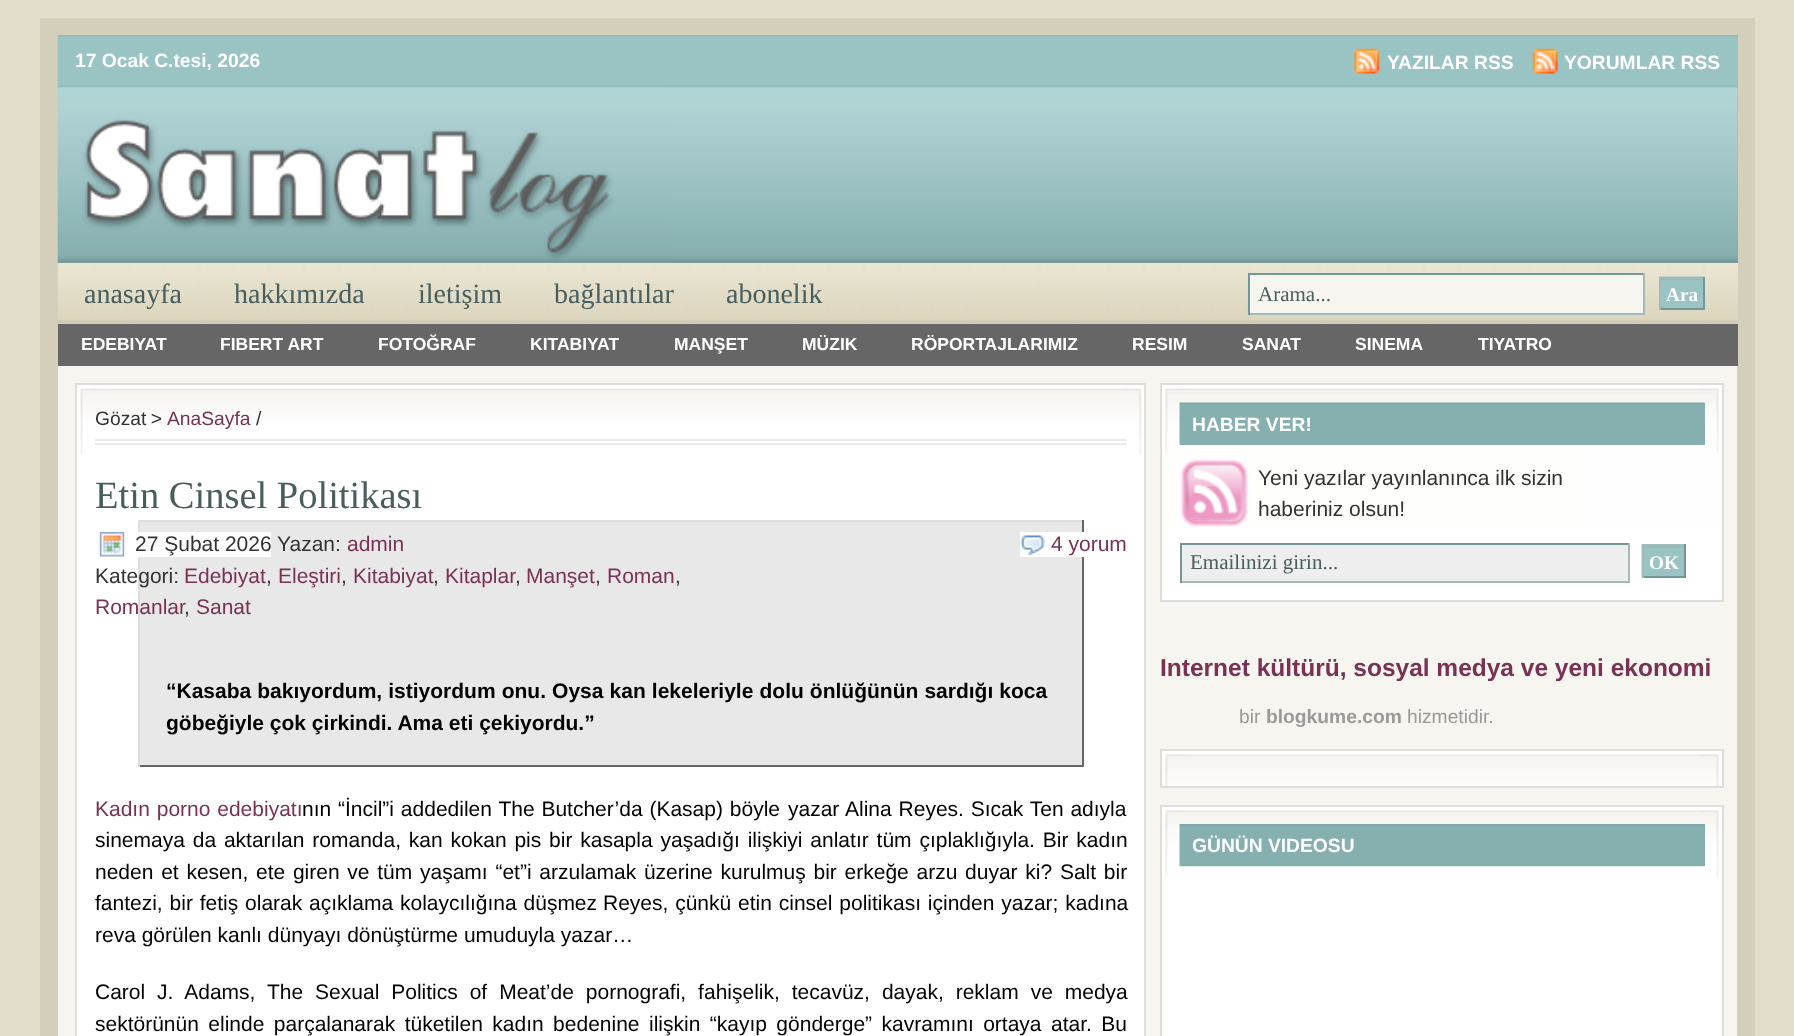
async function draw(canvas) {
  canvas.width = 1794
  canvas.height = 1036
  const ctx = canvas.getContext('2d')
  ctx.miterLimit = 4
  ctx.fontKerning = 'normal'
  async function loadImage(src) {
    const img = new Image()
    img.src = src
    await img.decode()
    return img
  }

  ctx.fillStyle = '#e2ddcb'
  ctx.fillRect(0, 0, 1794, 1036)
  ctx.fillStyle = '#f7f5ef'
  ctx.fillRect(58, 366, 1679, 670)
  ctx.strokeStyle = '#d4cfbb'
  ctx.lineWidth = 18
  ctx.strokeRect(49, 27, 1697, 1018)
  ctx.fillStyle = '#93bbbc'
  ctx.fillRect(58, 35, 1680, 53)
  ctx.drawImage(await loadImage('image0.png'), 57, 35, 1681, 53)
  ctx.font = 'bold 19.25px Liberation Sans'
  ctx.fillStyle = '#fff'
  ctx.fillText('17 Ocak C.tesi, 2026', 75, 67)
  ctx.drawImage(await loadImage('image1.png'), 1354, 48, 26, 26)
  ctx.fillText('YAZILAR RSS', 1387, 69)
  ctx.drawImage(await loadImage('image2.png'), 1532, 48, 26, 26)
  ctx.fillText('YORUMLAR RSS', 1564, 69)
  ctx.fillStyle = '#e1dcca'
  ctx.fillRect(1737, 263, 1, 61)
  ctx.drawImage(await loadImage('image5.png'), 57, 262, 1681, 62)
  ctx.fillStyle = '#85acac'
  ctx.fillRect(58, 88, 1680, 175)
  ctx.drawImage(await loadImage('image3.png'), 57, 87, 1681, 176)
  ctx.drawImage(await loadImage('image4.png'), 57, 87, 613, 175)
  ctx.font = '28px Liberation Serif'
  ctx.fillStyle = '#495d5c'
  ctx.fillText('anasayfa', 84, 303)
  ctx.fillText('hakkımızda', 234, 303)
  ctx.fillText('iletişim', 418, 303)
  ctx.fillText('bağlantılar', 554, 303)
  ctx.fillText('abonelik', 726, 303)
  ctx.fillStyle = '#f7f5ef'
  ctx.fillRect(1250, 275, 393, 38)
  ctx.fillStyle = '#759697'
  ctx.fillRect(1248, 273, 397, 2)
  ctx.fillStyle = '#a3bab9'
  ctx.fillRect(1643, 273, 2, 42)
  ctx.fillRect(1248, 313, 397, 2)
  ctx.fillStyle = '#759697'
  ctx.fillRect(1248, 273, 2, 42)
  ctx.font = '21px Liberation Serif'
  ctx.fillStyle = '#495d5c'
  ctx.fillText('Arama...', 1258, 301)
  ctx.drawImage(await loadImage('image6.png'), 1659, 276, 46, 32)
  ctx.fillStyle = '#a3bab9'
  ctx.fillRect(1659, 277, 46, 2)
  ctx.fillStyle = '#759697'
  ctx.fillRect(1703, 277, 2, 33)
  ctx.fillRect(1659, 308, 46, 2)
  ctx.fillStyle = '#a3bab9'
  ctx.fillRect(1659, 277, 2, 33)
  ctx.font = 'bold 19.25px Liberation Serif'
  ctx.fillStyle = '#fff'
  ctx.fillText('Ara', 1666, 301)
  ctx.fillStyle = '#666'
  ctx.fillRect(58, 324, 1680, 42)
  ctx.font = 'bold 17.5px Liberation Sans'
  ctx.fillStyle = '#fff'
  ctx.fillText('EDEBIYAT', 81, 350)
  ctx.fillText('FIBERT ART', 220, 350)
  ctx.fillText('FOTOĞRAF', 378, 350)
  ctx.fillText('KITABIYAT', 530, 350)
  ctx.fillText('MANŞET', 674, 350)
  ctx.fillText('MÜZIK', 802, 350)
  ctx.fillText('RÖPORTAJLARIMIZ', 911, 350)
  ctx.fillText('RESIM', 1132, 350)
  ctx.fillText('SANAT', 1242, 350)
  ctx.fillText('SINEMA', 1355, 350)
  ctx.fillText('TIYATRO', 1478, 350)
  ctx.fillRect(77, 385, 1067, 651)
  ctx.drawImage(await loadImage('image7.png'), 80, 388, 1062, 67)
  ctx.strokeStyle = '#ddd'
  ctx.lineWidth = 2
  ctx.strokeRect(76, 384, 1069, 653)
  ctx.fillStyle = '#eaeaea'
  ctx.fillRect(95, 439, 1032, 2)
  ctx.fillRect(95, 443, 1032, 2)
  ctx.wordSpacing = '-1px'
  ctx.font = '19.25px Liberation Sans'
  ctx.fillStyle = '#333'
  ctx.fillText('Gözat >', 95, 425)
  ctx.wordSpacing = '0px'
  ctx.fillStyle = '#7a3254'
  ctx.fillText('AnaSayfa', 167, 425)
  ctx.fillStyle = '#333'
  ctx.fillText('/', 256, 425)
  ctx.font = '38.5px Liberation Serif'
  ctx.fillStyle = '#495d5c'
  ctx.fillText('Etin Cinsel Politikası', 95, 508)
  ctx.drawImage(await loadImage('image8.png'), 99, 532, 26, 25)
  ctx.fillStyle = '#e8e8e8'
  ctx.fillRect(140, 522, 942, 243)
  ctx.fillStyle = '#ddd'
  ctx.fillRect(138, 520, 945, 2)
  ctx.fillStyle = '#666'
  ctx.fillRect(1082, 520, 2, 247)
  ctx.fillRect(138, 765, 945, 2)
  ctx.fillStyle = '#ddd'
  ctx.fillRect(138, 520, 2, 247)
  ctx.fillStyle = '#fff'
  ctx.fillRect(138, 532, 133, 25)
  ctx.font = '21px Liberation Sans'
  ctx.fillStyle = '#333'
  ctx.fillText('27 Şubat 2026', 135, 551)
  ctx.fillText('Yazan:', 277, 551)
  ctx.fillStyle = '#7a3254'
  ctx.fillText('admin', 347, 551)
  ctx.fillStyle = '#333'
  ctx.fillText('Kategori:', 95, 583)
  ctx.fillStyle = '#7a3254'
  ctx.fillText('Edebiyat', 184, 583)
  ctx.fillStyle = '#333'
  ctx.fillText(',', 266, 583)
  ctx.fillStyle = '#7a3254'
  ctx.fillText('Eleştiri', 278, 583)
  ctx.fillStyle = '#333'
  ctx.fillText(',', 341, 583)
  ctx.fillStyle = '#7a3254'
  ctx.fillText('Kitabiyat', 353, 583)
  ctx.fillStyle = '#333'
  ctx.fillText(',', 433, 583)
  ctx.fillStyle = '#7a3254'
  ctx.fillText('Kitaplar', 445, 583)
  ctx.fillStyle = '#333'
  ctx.fillText(',', 515, 583)
  ctx.fillStyle = '#7a3254'
  ctx.fillText('Manşet', 526, 583)
  ctx.fillStyle = '#333'
  ctx.fillText(',', 595, 583)
  ctx.fillStyle = '#7a3254'
  ctx.fillText('Roman', 607, 583)
  ctx.fillStyle = '#333'
  ctx.fillText(',', 675, 583)
  ctx.fillStyle = '#7a3254'
  ctx.fillText('Romanlar', 95, 614)
  ctx.fillStyle = '#333'
  ctx.fillText(',', 184, 614)
  ctx.fillStyle = '#7a3254'
  ctx.fillText('Sanat', 196, 614)
  ctx.fillStyle = '#fff'
  ctx.fillRect(1020, 532, 64, 25)
  ctx.drawImage(await loadImage('image9.png'), 1020, 535, 25, 21)
  ctx.fillStyle = '#7a3254'
  ctx.fillText('4 yorum', 1051, 551)
  ctx.wordSpacing = '0.25px'
  ctx.font = 'bold 21px Liberation Sans'
  ctx.fillStyle = '#000'
  ctx.fillText('“Kasaba bakıyordum, istiyordum onu. Oysa kan lekeleriyle dolu önlüğünün sardığı koca', 166, 698)
  ctx.wordSpacing = '0px'
  ctx.fillText('göbeğiyle çok çirkindi. Ama eti çekiyordu.”', 166, 730)
  ctx.wordSpacing = '1px'
  ctx.font = '21px Liberation Sans'
  ctx.fillStyle = '#7a3254'
  ctx.fillText('Kadın porno edebiyatı', 95, 816)
  ctx.fillStyle = '#000'
  ctx.fillText('nın “İncil”i addedilen The Butcher’da (Kasap) böyle', 302, 816)
  ctx.fillText('yazar Alina Reyes. Sıcak Ten adıyla', 788, 816)
  ctx.wordSpacing = '2px'
  ctx.fillText('sinemaya da aktarılan romanda, kan kokan pis bir kasapla yaşadığı ilişkiyi anlatır tüm çıplaklığıyla. Bir kadın', 95, 847)
  ctx.wordSpacing = '1.9px'
  ctx.fillText('neden et kesen, ete giren ve tüm yaşamı “et”i arzulamak üzerine kurulmuş bir erkeğe arzu duyar ki? Salt bir', 95, 879)
  ctx.wordSpacing = '1px'
  ctx.fillText('fantezi, bir fetiş olarak açıklama kolaycılığına düşmez', 95, 910)
  ctx.fillText('Reyes, çünkü etin cinsel politikası içinden yazar; kadına', 603, 910)
  ctx.wordSpacing = '0px'
  ctx.fillText('reva görülen kanlı dünyayı dönüştürme umuduyla yazar…', 95, 942)
  ctx.wordSpacing = '6.1px'
  ctx.fillText('Carol J. Adams, The Sexual Politics of Meat’de pornografi, fahişelik, tecavüz, dayak, reklam ve medya', 95, 999)
  ctx.wordSpacing = '3.6px'
  ctx.fillText('sektörünün elinde parçalanarak tüketilen kadın bedenine ilişkin “kayıp gönderge” kavramını ortaya atar. Bu', 95, 1031)
  ctx.fillStyle = '#fff'
  ctx.fillRect(1162, 385, 560, 215)
  ctx.drawImage(await loadImage('image10.png'), 1165, 388, 554, 139)
  ctx.strokeRect(1161, 384, 562, 217)
  ctx.fillStyle = '#86afb0'
  ctx.fillRect(1180, 403, 525, 42)
  ctx.drawImage(await loadImage('image11.png'), 1179, 402, 526, 43)
  ctx.wordSpacing = '0px'
  ctx.font = 'bold 19.25px Liberation Sans'
  ctx.fillStyle = '#fff'
  ctx.fillText('HABER VER!', 1192, 431)
  ctx.font = '21px Liberation Sans'
  ctx.fillStyle = '#333'
  ctx.fillText('Yeni yazılar yayınlanınca ilk sizin', 1258, 485)
  ctx.fillText('haberiniz olsun!', 1258, 516)
  ctx.fillStyle = '#eee'
  ctx.fillRect(1182, 545, 446, 36)
  ctx.fillStyle = '#759697'
  ctx.fillRect(1180, 543, 449, 2)
  ctx.fillStyle = '#a3bab9'
  ctx.fillRect(1628, 543, 2, 40)
  ctx.fillRect(1180, 581, 449, 2)
  ctx.fillStyle = '#759697'
  ctx.fillRect(1180, 543, 2, 40)
  ctx.font = '21px Liberation Serif'
  ctx.fillStyle = '#495d5c'
  ctx.fillText('Emailinizi girin...', 1190, 569)
  ctx.drawImage(await loadImage('image12.png'), 1641, 544, 43, 34)
  ctx.fillStyle = '#a3bab9'
  ctx.fillRect(1642, 544, 43, 2)
  ctx.fillStyle = '#759697'
  ctx.fillRect(1684, 544, 2, 34)
  ctx.fillRect(1642, 576, 43, 2)
  ctx.fillStyle = '#a3bab9'
  ctx.fillRect(1642, 544, 2, 34)
  ctx.font = 'bold 19.25px Liberation Serif'
  ctx.fillStyle = '#fff'
  ctx.fillText('OK', 1649, 569)
  ctx.font = 'bold 24.5px Liberation Sans'
  ctx.fillStyle = '#7a3254'
  ctx.fillText('Internet kültürü, sosyal medya ve yeni ekonomi', 1160, 676)
  ctx.font = '19.25px Liberation Sans'
  ctx.fillStyle = '#999'
  ctx.fillText('bir', 1239, 723)
  ctx.font = 'bold 19.25px Liberation Sans'
  ctx.fillText('blogkume.com', 1266, 723)
  ctx.font = '19.25px Liberation Sans'
  ctx.fillText('hizmetidir.', 1407, 723)
  ctx.fillStyle = '#fff'
  ctx.fillRect(1162, 751, 560, 35)
  ctx.drawImage(await loadImage('image13.png'), 1165, 754, 554, 32)
  ctx.strokeRect(1161, 750, 562, 37)
  ctx.fillRect(1162, 807, 560, 229)
  ctx.drawImage(await loadImage('image14.png'), 1165, 810, 554, 67)
  ctx.strokeRect(1161, 806, 562, 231)
  ctx.fillStyle = '#86afb0'
  ctx.fillRect(1180, 824, 525, 42)
  ctx.drawImage(await loadImage('image15.png'), 1179, 824, 526, 43)
  ctx.font = 'bold 19.25px Liberation Sans'
  ctx.fillStyle = '#fff'
  ctx.fillText('GÜNÜN VIDEOSU', 1192, 852)
}

draw(document.querySelector('canvas'))
